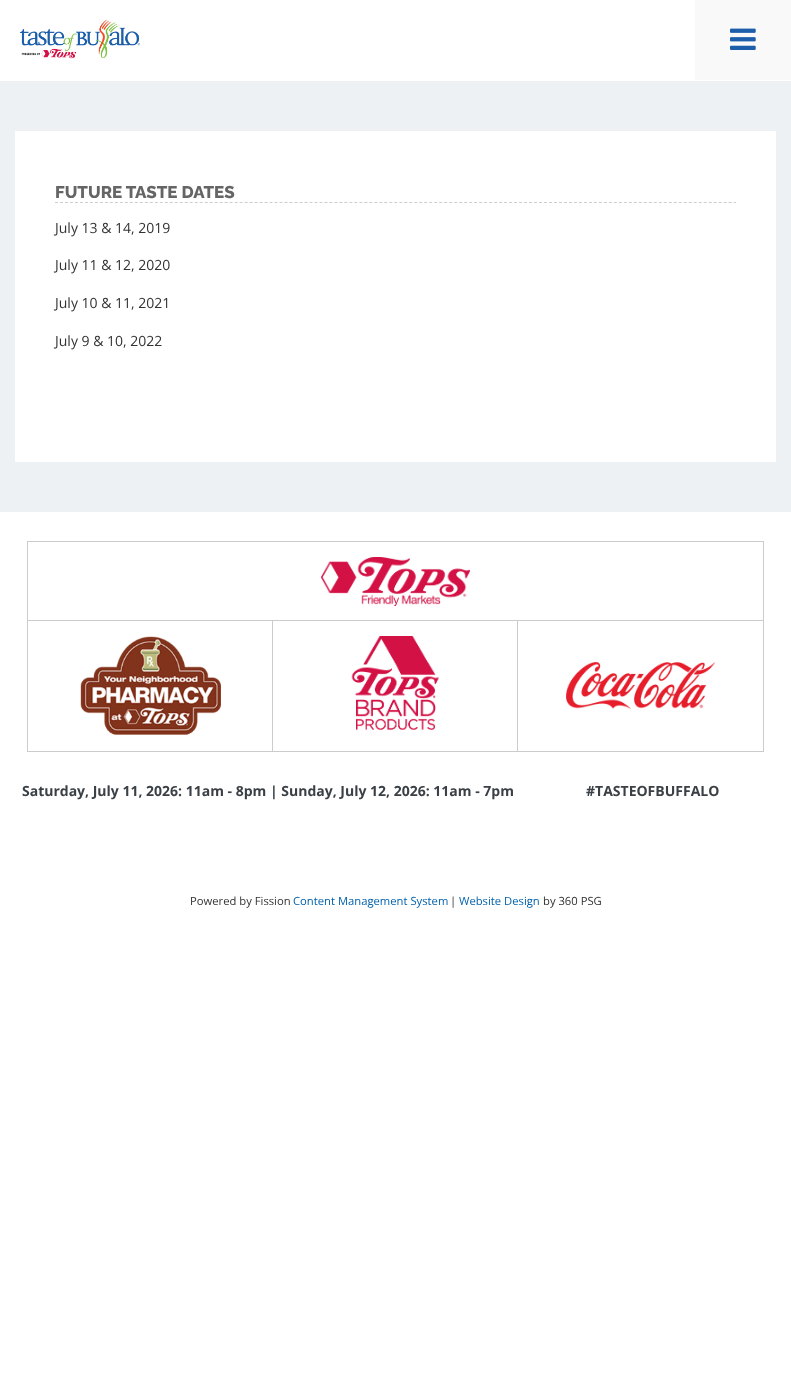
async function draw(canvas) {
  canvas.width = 791
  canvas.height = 1384
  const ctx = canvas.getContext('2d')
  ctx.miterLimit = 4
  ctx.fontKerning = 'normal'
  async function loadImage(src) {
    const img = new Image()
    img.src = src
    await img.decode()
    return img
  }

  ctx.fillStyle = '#fff'
  ctx.fillRect(0, 0, 791, 1384)
  ctx.drawImage(await loadImage('image0.png'), 20, 19, 120, 40)
  ctx.fillStyle = '#f9f9f9'
  ctx.fillRect(695, 0, 96, 80)
  ctx.drawImage(await loadImage('image1.png'), 730, 28, 26, 22)
  ctx.fillStyle = '#edf1f3'
  ctx.fillRect(0, 81, 791, 431)
  ctx.fillStyle = '#fff'
  ctx.fillRect(15, 131, 761, 331)
  ctx.beginPath()
  ctx.moveTo(55, 202.5)
  ctx.lineTo(736, 202.5)
  ctx.strokeStyle = '#cdcdcd'
  ctx.setLineDash([3, 1.99])
  ctx.stroke()
  ctx.font = '800 17px Raleway'
  ctx.fillStyle = '#656565'
  ctx.fillText('FUTURE TASTE DATES', 55, 198)
  ctx.font = '14px Open Sans'
  ctx.fillStyle = '#333'
  ctx.fillText('July 13 & 14, 2019', 55, 233)
  ctx.fillText('July 11 & 12, 2020', 55, 270)
  ctx.fillText('July 10 & 11, 2021', 55, 308)
  ctx.fillText('July 9 & 10, 2022', 55, 346)
  ctx.drawImage(await loadImage('image2.png'), 321, 557, 149, 49)
  ctx.strokeStyle = '#ccc'
  ctx.setLineDash([])
  ctx.strokeRect(27.5, 541.5, 736, 80)
  ctx.fillStyle = '#fff'
  ctx.fillRect(28, 621, 244, 1)
  ctx.drawImage(await loadImage('image3.png'), 80, 636, 141, 99)
  ctx.strokeRect(27.5, 620.5, 246, 131)
  ctx.fillRect(273, 621, 244, 130)
  ctx.drawImage(await loadImage('image4.png'), 351, 636, 88, 94)
  ctx.strokeRect(272.5, 620.5, 246, 131)
  ctx.fillRect(518, 621, 245, 130)
  ctx.drawImage(await loadImage('image5.png'), 566, 662, 149, 47)
  ctx.strokeRect(517.5, 620.5, 246, 131)
  ctx.font = 'bold 14px Open Sans'
  ctx.fillStyle = '#3a4045'
  ctx.fillText('Saturday, July 11, 2026: 11am - 8pm | Sunday, July 12, 2026: 11am - 7pm', 22, 796)
  ctx.fillText('#TASTEOFBUFFALO', 586, 796)
  ctx.font = '11.25px Open Sans'
  ctx.fillStyle = '#333'
  ctx.fillText('Powered by Fission', 190, 905)
  ctx.fillStyle = '#0061ac'
  ctx.fillText('Content Management System', 293, 905)
  ctx.fillStyle = '#333'
  ctx.fillText('|', 450, 905)
  ctx.fillStyle = '#0061ac'
  ctx.fillText('Website Design', 459, 905)
  ctx.fillStyle = '#333'
  ctx.fillText('by 360 PSG', 543, 905)
}

draw(document.querySelector('canvas'))
